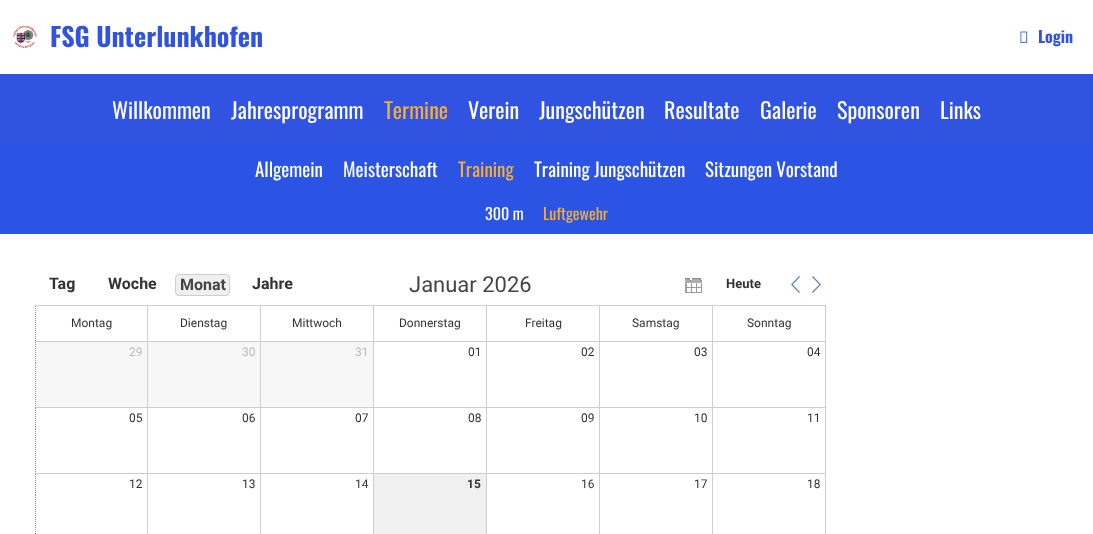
async function draw(canvas) {
  canvas.width = 1093
  canvas.height = 534
  const ctx = canvas.getContext('2d')
  ctx.miterLimit = 4
  ctx.fontKerning = 'normal'
  async function loadImage(src) {
    const img = new Image()
    img.src = src
    await img.decode()
    return img
  }

  ctx.fillStyle = '#fff'
  ctx.fillRect(0, 0, 1093, 534)
  ctx.drawImage(await loadImage('image0.png'), 12, 25, 26, 24)
  ctx.font = 'bold 26px Oswald'
  ctx.fillStyle = '#3153e2'
  ctx.fillText('FSG Unterlunkhofen', 50, 47)
  ctx.drawImage(await loadImage('image1.png'), 1020, 31, 8, 12)
  ctx.font = 'bold 16px Oswald'
  ctx.fillText('Login', 1038, 43)
  ctx.fillRect(0, 74, 1093, 71)
  ctx.font = '22px Oswald'
  ctx.fillStyle = '#fff'
  ctx.fillText('Willkommen', 112, 119)
  ctx.fillText('Jahresprogramm', 231, 119)
  ctx.fillStyle = '#f4ae35'
  ctx.fillText('Termine', 384, 119)
  ctx.fillStyle = '#fff'
  ctx.fillText('Verein', 468, 119)
  ctx.fillText('Jungschützen', 539, 119)
  ctx.fillText('Resultate', 664, 119)
  ctx.fillText('Galerie', 760, 119)
  ctx.fillText('Sponsoren', 837, 119)
  ctx.fillText('Links', 940, 119)
  ctx.fillStyle = '#2b53e4'
  ctx.fillRect(0, 145, 1093, 89)
  ctx.font = '19px Oswald'
  ctx.fillStyle = '#fff'
  ctx.fillText('Allgemein', 255, 177)
  ctx.fillText('Meisterschaft', 343, 177)
  ctx.fillStyle = '#f4ae35'
  ctx.fillText('Training', 458, 177)
  ctx.fillStyle = '#fff'
  ctx.fillText('Training Jungschützen', 534, 177)
  ctx.fillText('Sitzungen Vorstand', 705, 177)
  ctx.font = '16px Oswald'
  ctx.fillText('300 m', 485, 220)
  ctx.fillStyle = '#f4ae35'
  ctx.fillText('Luftgewehr', 543, 220)
  ctx.font = 'bold 16px Roboto'
  ctx.fillStyle = '#333'
  ctx.fillText('Tag', 49, 289)
  ctx.fillText('Woche', 108, 289)
  ctx.fillStyle = '#f0f0f0'
  ctx.beginPath()
  ctx.roundRect(175.5, 274.5, 54, 21, 3.5)
  ctx.fill()
  ctx.strokeStyle = '#cecece'
  ctx.stroke()
  ctx.fillStyle = '#454544'
  ctx.fillText('Monat', 180, 290)
  ctx.fillStyle = '#333'
  ctx.fillText('Jahre', 252, 289)
  ctx.font = '22px Roboto'
  ctx.fillStyle = '#454544'
  ctx.fillText('Januar 2026', 409, 292)
  ctx.drawImage(await loadImage('image2.png'), 685, 278, 17, 15)
  ctx.font = 'bold 13px Roboto'
  ctx.fillStyle = '#333'
  ctx.fillText('Heute', 726, 288)
  ctx.drawImage(await loadImage('image3.png'), 791, 276, 9, 17)
  ctx.drawImage(await loadImage('image4.png'), 812, 276, 9, 17)
  ctx.fillStyle = '#cecece'
  ctx.fillRect(35, 305, 791, 1)
  ctx.fillRect(825, 305, 1, 36)
  ctx.beginPath()
  ctx.moveTo(35.5, 306)
  ctx.lineTo(35.5, 341)
  ctx.strokeStyle = '#8894a3'
  ctx.setLineDash([1, 1])
  ctx.stroke()
  ctx.font = '12px Roboto'
  ctx.fillStyle = '#333'
  ctx.fillText('Montag', 71, 327)
  ctx.fillStyle = '#cecece'
  ctx.fillRect(147, 306, 1, 35)
  ctx.fillStyle = '#333'
  ctx.fillText('Dienstag', 180, 327)
  ctx.fillStyle = '#cecece'
  ctx.fillRect(260, 306, 1, 35)
  ctx.fillStyle = '#333'
  ctx.fillText('Mittwoch', 292, 327)
  ctx.fillStyle = '#cecece'
  ctx.fillRect(373, 306, 1, 35)
  ctx.fillStyle = '#333'
  ctx.fillText('Donnerstag', 399, 327)
  ctx.fillStyle = '#cecece'
  ctx.fillRect(486, 306, 1, 35)
  ctx.fillStyle = '#333'
  ctx.fillText('Freitag', 525, 327)
  ctx.fillStyle = '#cecece'
  ctx.fillRect(599, 306, 1, 35)
  ctx.fillStyle = '#333'
  ctx.fillText('Samstag', 632, 327)
  ctx.fillStyle = '#cecece'
  ctx.fillRect(712, 306, 1, 35)
  ctx.fillStyle = '#333'
  ctx.fillText('Sonntag', 747, 327)
  ctx.fillStyle = '#cecece'
  ctx.fillRect(35, 341, 791, 1)
  ctx.fillStyle = '#f7f7f7'
  ctx.fillRect(35, 342, 112, 65)
  ctx.fillStyle = '#cecece'
  ctx.fillRect(147, 342, 1, 192)
  ctx.beginPath()
  ctx.moveTo(35.5, 342)
  ctx.lineTo(35.5, 363)
  ctx.stroke()
  ctx.fillStyle = '#bbb'
  ctx.fillText('29', 129, 356)
  ctx.fillStyle = '#cecece'
  ctx.fillRect(35, 407, 113, 1)
  ctx.beginPath()
  ctx.moveTo(35.5, 363)
  ctx.lineTo(35.5, 408)
  ctx.stroke()
  ctx.fillStyle = '#f7f7f7'
  ctx.fillRect(148, 342, 112, 65)
  ctx.fillStyle = '#cecece'
  ctx.fillRect(260, 342, 1, 192)
  ctx.fillStyle = '#bbb'
  ctx.fillText('30', 242, 356)
  ctx.fillStyle = '#cecece'
  ctx.fillRect(148, 407, 113, 1)
  ctx.fillStyle = '#f7f7f7'
  ctx.fillRect(261, 342, 112, 65)
  ctx.fillStyle = '#cecece'
  ctx.fillRect(373, 342, 1, 192)
  ctx.fillStyle = '#bbb'
  ctx.fillText('31', 355, 356)
  ctx.fillStyle = '#cecece'
  ctx.fillRect(261, 407, 113, 1)
  ctx.fillRect(486, 342, 1, 192)
  ctx.fillStyle = '#333'
  ctx.fillText('01', 468, 356)
  ctx.fillStyle = '#cecece'
  ctx.fillRect(374, 407, 113, 1)
  ctx.fillRect(599, 342, 1, 192)
  ctx.fillStyle = '#333'
  ctx.fillText('02', 581, 356)
  ctx.fillStyle = '#cecece'
  ctx.fillRect(487, 407, 113, 1)
  ctx.fillRect(712, 342, 1, 192)
  ctx.fillStyle = '#333'
  ctx.fillText('03', 694, 356)
  ctx.fillStyle = '#cecece'
  ctx.fillRect(600, 407, 113, 1)
  ctx.fillRect(825, 342, 1, 192)
  ctx.fillStyle = '#333'
  ctx.fillText('04', 807, 356)
  ctx.fillStyle = '#cecece'
  ctx.fillRect(713, 407, 113, 1)
  ctx.beginPath()
  ctx.moveTo(35.5, 408)
  ctx.lineTo(35.5, 429)
  ctx.stroke()
  ctx.fillStyle = '#333'
  ctx.fillText('05', 129, 422)
  ctx.fillStyle = '#cecece'
  ctx.fillRect(35, 473, 791, 1)
  ctx.beginPath()
  ctx.moveTo(35.5, 429)
  ctx.lineTo(35.5, 474)
  ctx.stroke()
  ctx.fillStyle = '#333'
  ctx.fillText('06', 242, 422)
  ctx.fillText('07', 355, 422)
  ctx.fillText('08', 468, 422)
  ctx.fillText('09', 581, 422)
  ctx.fillText('10', 694, 422)
  ctx.fillText('11', 807, 422)
  ctx.beginPath()
  ctx.moveTo(35.5, 474)
  ctx.lineTo(35.5, 495)
  ctx.moveTo(35.5, 495)
  ctx.lineTo(35.5, 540)
  ctx.stroke()
  ctx.fillText('12', 129, 488)
  ctx.fillText('13', 242, 488)
  ctx.fillText('14', 355, 488)
  ctx.fillStyle = '#f0f0f0'
  ctx.fillRect(374, 474, 112, 60)
  ctx.font = 'bold 12px Roboto'
  ctx.fillStyle = '#333'
  ctx.fillText('15', 467, 488)
  ctx.font = '12px Roboto'
  ctx.fillText('16', 581, 488)
  ctx.fillText('17', 694, 488)
  ctx.fillText('18', 807, 488)
}

draw(document.querySelector('canvas'))
